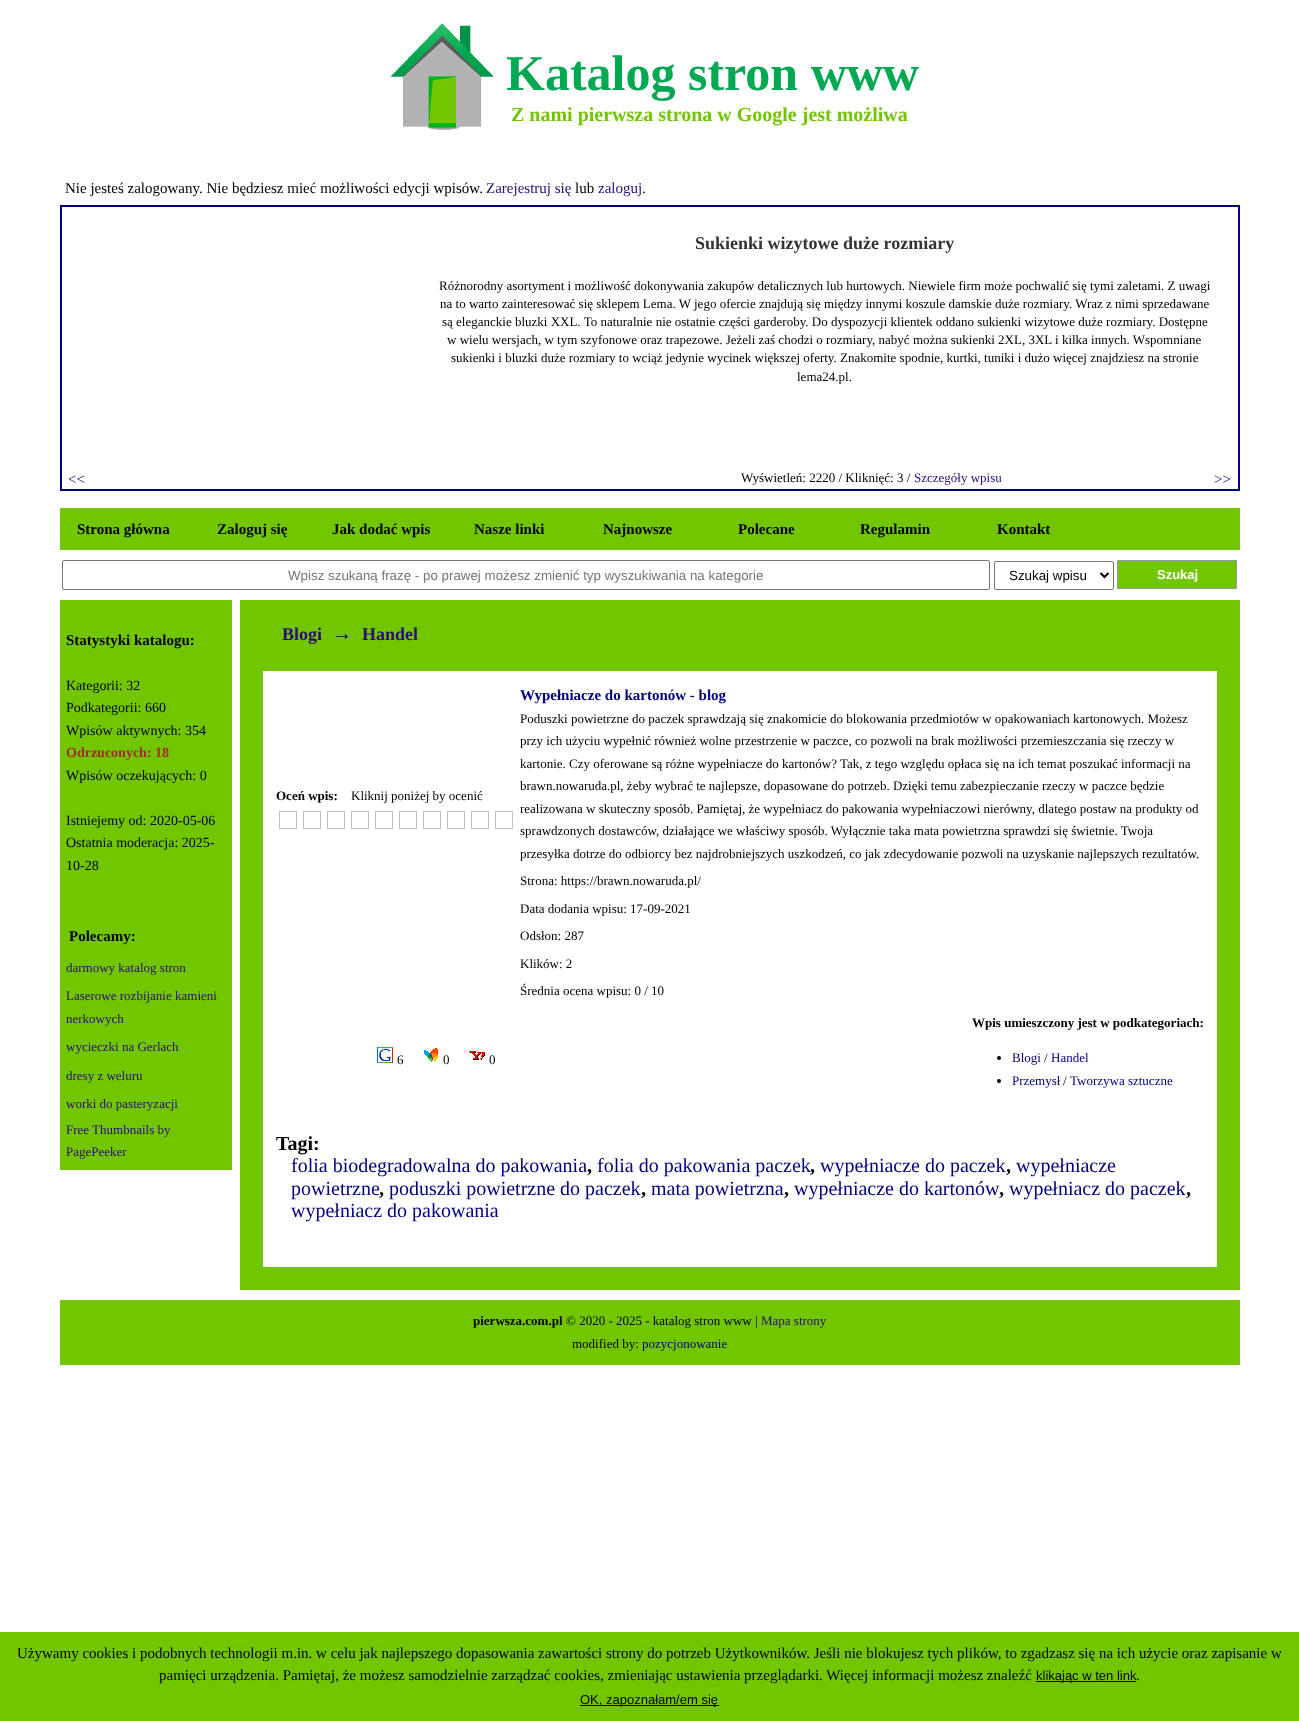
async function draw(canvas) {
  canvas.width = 1299
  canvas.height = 1721
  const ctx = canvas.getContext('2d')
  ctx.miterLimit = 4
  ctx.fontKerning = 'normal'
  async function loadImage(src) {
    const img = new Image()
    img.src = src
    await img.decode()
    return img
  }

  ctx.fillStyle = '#fff'
  ctx.fillRect(0, 0, 1299, 1721)
  ctx.drawImage(await loadImage('image0.png'), 391, 23, 103, 107)
  ctx.font = 'bold 50px Liberation Serif'
  ctx.fillStyle = '#02a952'
  ctx.fillText('Katalog stron www', 506, 90)
  ctx.font = 'bold 20px Liberation Serif'
  ctx.fillStyle = '#72c600'
  ctx.fillText('Z nami pierwsza strona w Google jest możliwa', 511, 121)
  ctx.font = '15px Liberation Serif'
  ctx.fillStyle = '#000'
  ctx.fillText('Nie jesteś zalogowany. Nie będziesz mieć możliwości edycji wpisów.', 65, 193)
  ctx.fillStyle = '#2a0c7a'
  ctx.fillText('Zarejestruj się', 486, 193)
  ctx.fillStyle = '#000'
  ctx.fillText('lub', 575, 193)
  ctx.fillStyle = '#2a0c7a'
  ctx.fillText('zaloguj', 598, 193)
  ctx.fillStyle = '#000'
  ctx.fillText('.', 642, 193)
  ctx.strokeStyle = '#000080'
  ctx.lineWidth = 2
  ctx.strokeRect(61, 206, 1178, 284)
  ctx.fillStyle = '#2a0c7a'
  ctx.fillText('<<', 68, 484)
  ctx.font = 'bold 18px Liberation Serif'
  ctx.fillStyle = '#333'
  ctx.fillText('Sukienki wizytowe duże rozmiary', 695, 249)
  ctx.font = '13px Liberation Serif'
  ctx.fillStyle = '#000'
  ctx.fillText('Różnorodny asortyment i możliwość dokonywania zakupów detalicznych lub hurtowych. Niewiele firm może pochwalić się tymi zaletami. Z uwagi', 439, 290)
  ctx.fillText('na to warto zainteresować się sklepem Lema. W jego ofercie znajdują się między innymi koszule damskie duże rozmiary. Wraz z nimi sprzedawane', 440, 308)
  ctx.fillText('są eleganckie bluzki XXL. To naturalnie nie ostatnie części garderoby. Do dyspozycji klientek oddano sukienki wizytowe duże rozmiary. Dostępne', 442, 326)
  ctx.fillText('w wielu wersjach, w tym szyfonowe oraz trapezowe. Jeżeli zaś chodzi o rozmiary, nabyć można sukienki 2XL, 3XL i kilka innych. Wspomniane', 447, 344)
  ctx.fillText('sukienki i bluzki duże rozmiary to wciąż jedynie wycinek większej oferty. Znakomite spodnie, kurtki, tuniki i dużo więcej znajdziesz na stronie', 451, 362)
  ctx.fillText('lema24.pl.', 797, 381)
  ctx.fillText('Wyświetleń: 2220 / Kliknięć: 3 /', 741, 482)
  ctx.fillStyle = '#2a0c7a'
  ctx.fillText('Szczegóły wpisu', 914, 482)
  ctx.font = '15px Liberation Serif'
  ctx.fillText('>>', 1214, 484)
  ctx.fillStyle = '#72c600'
  ctx.fillRect(60, 508, 1180, 42)
  ctx.font = 'bold 15px Liberation Serif'
  ctx.fillStyle = '#000'
  ctx.fillText('Strona główna', 77, 534)
  ctx.fillText('Zaloguj się', 217, 534)
  ctx.fillText('Jak dodać wpis', 332, 534)
  ctx.fillText('Nasze linki', 474, 534)
  ctx.fillText('Najnowsze', 603, 534)
  ctx.fillText('Polecane', 738, 534)
  ctx.fillText('Regulamin', 860, 534)
  ctx.fillText('Kontakt', 997, 534)
  ctx.beginPath()
  ctx.roundRect(62.5, 560.5, 927, 29, 1.5)
  ctx.strokeStyle = '#767676'
  ctx.lineWidth = 1
  ctx.stroke()
  ctx.font = '13.35px Liberation Sans'
  ctx.fillStyle = '#757575'
  ctx.fillText('Wpisz szukaną frazę - po prawej możesz zmienić typ wyszukiwania na kategorie', 288, 580)
  ctx.beginPath()
  ctx.roundRect(994.5, 561.5, 119, 28, 1.5)
  ctx.stroke()
  ctx.beginPath()
  ctx.moveTo(1100.5, 573)
  ctx.lineTo(1104.5, 577)
  ctx.lineTo(1108.5, 573)
  ctx.strokeStyle = '#000'
  ctx.lineWidth = 2
  ctx.stroke()
  ctx.fillStyle = '#000'
  ctx.fillText('Szukaj wpisu', 1009, 580)
  ctx.fillStyle = '#72c600'
  ctx.beginPath()
  ctx.rect(1117.5, 560.5, 119, 28)
  ctx.fill()
  ctx.strokeStyle = '#999'
  ctx.lineWidth = 1
  ctx.stroke()
  ctx.font = 'bold 13px Liberation Sans'
  ctx.fillStyle = '#fff'
  ctx.fillText('Szukaj', 1157, 579)
  ctx.fillStyle = '#72c600'
  ctx.fillRect(60, 600, 172, 570)
  ctx.font = 'bold 15px Liberation Serif'
  ctx.fillStyle = '#000'
  ctx.fillText('Statystyki katalogu:', 66, 645)
  ctx.font = '14px Liberation Serif'
  ctx.fillText('Kategorii: 32', 66, 690)
  ctx.fillText('Podkategorii: 660', 66, 712)
  ctx.fillText('Wpisów aktywnych: 354', 66, 735)
  ctx.font = 'bold 14px Liberation Serif'
  ctx.fillStyle = '#a52a2a'
  ctx.fillText('Odrzuconych: 18', 66, 757)
  ctx.font = '14px Liberation Serif'
  ctx.fillStyle = '#000'
  ctx.fillText('Wpisów oczekujących: 0', 66, 780)
  ctx.fillText('Istniejemy od: 2020-05-06', 66, 825)
  ctx.fillText('Ostatnia moderacja: 2025-', 66, 847)
  ctx.fillText('10-28', 66, 870)
  ctx.font = 'bold 15px Liberation Serif'
  ctx.fillText('Polecamy:', 69, 941)
  ctx.font = '13px Liberation Serif'
  ctx.fillStyle = '#2a0c7a'
  ctx.fillText('darmowy katalog stron', 66, 972)
  ctx.fillText('Laserowe rozbijanie kamieni', 66, 1000)
  ctx.fillText('nerkowych', 66, 1023)
  ctx.fillText('wycieczki na Gerlach', 66, 1051)
  ctx.fillText('dresy z weluru', 66, 1080)
  ctx.fillText('worki do pasteryzacji', 66, 1108)
  ctx.fillText('Free Thumbnails by', 66, 1134)
  ctx.fillText('PagePeeker', 66, 1156)
  ctx.fillStyle = '#72c600'
  ctx.fillRect(240, 600, 1000, 690)
  ctx.font = 'bold 18px Liberation Serif'
  ctx.fillStyle = '#2a0c7a'
  ctx.fillText('Blogi', 282, 640)
  ctx.font = 'bold 20px Liberation Serif'
  ctx.fillStyle = '#000'
  ctx.fillText('→', 332, 640)
  ctx.font = 'bold 18px Liberation Serif'
  ctx.fillStyle = '#2a0c7a'
  ctx.fillText('Handel', 362, 640)
  ctx.fillStyle = '#fff'
  ctx.fillRect(263, 671, 954, 596)
  ctx.font = 'bold 13px Liberation Serif'
  ctx.fillStyle = '#000'
  ctx.fillText('Oceń wpis:', 276, 800)
  ctx.font = '13px Liberation Serif'
  ctx.fillText('Kliknij poniżej by ocenić', 351, 800)
  ctx.strokeStyle = '#c0c0c0'
  ctx.strokeRect(279.5, 811.5, 17, 17)
  ctx.strokeRect(303.5, 811.5, 17, 17)
  ctx.strokeRect(327.5, 811.5, 17, 17)
  ctx.strokeRect(351.5, 811.5, 17, 17)
  ctx.strokeRect(375.5, 811.5, 17, 17)
  ctx.strokeRect(399.5, 811.5, 17, 17)
  ctx.strokeRect(423.5, 811.5, 17, 17)
  ctx.strokeRect(447.5, 811.5, 17, 17)
  ctx.strokeRect(471.5, 811.5, 17, 17)
  ctx.strokeRect(495.5, 811.5, 17, 17)
  ctx.font = 'bold 15px Liberation Serif'
  ctx.fillStyle = '#000080'
  ctx.fillText('Wypełniacze do kartonów - blog', 520, 700)
  ctx.font = '13px Liberation Serif'
  ctx.fillStyle = '#000'
  ctx.fillText('Poduszki powietrzne do paczek sprawdzają się znakomicie do blokowania przedmiotów w opakowaniach kartonowych. Możesz', 520, 723)
  ctx.fillText('przy ich użyciu wypełnić również wolne przestrzenie w paczce, co pozwoli na brak możliwości przemieszczania się rzeczy w', 520, 745)
  ctx.fillText('kartonie. Czy oferowane są różne wypełniacze do kartonów? Tak, z tego względu opłaca się na ich temat poszukać informacji na', 520, 768)
  ctx.fillText('brawn.nowaruda.pl, żeby wybrać te najlepsze, dopasowane do potrzeb. Dzięki temu zabezpieczanie rzeczy w paczce będzie', 520, 790)
  ctx.fillText('realizowana w skuteczny sposób. Pamiętaj, że wypełniacz do pakowania wypełniaczowi nierówny, dlatego postaw na produkty od', 520, 813)
  ctx.fillText('sprawdzonych dostawców, działające we właściwy sposób. Wyłącznie taka mata powietrzna sprawdzi się świetnie. Twoja', 520, 835)
  ctx.fillText('przesyłka dotrze do odbiorcy bez najdrobniejszych uszkodzeń, co jak zdecydowanie pozwoli na uzyskanie najlepszych rezultatów.', 520, 858)
  ctx.fillText('Strona: https://brawn.nowaruda.pl/', 520, 885)
  ctx.fillText('Data dodania wpisu: 17-09-2021', 520, 913)
  ctx.fillText('Odsłon: 287', 520, 940)
  ctx.fillText('Klików: 2', 520, 968)
  ctx.fillText('Średnia ocena wpisu: 0 / 10', 520, 995)
  ctx.drawImage(await loadImage('image1.png'), 377, 1047, 16, 16)
  ctx.fillText('6', 397, 1064)
  ctx.drawImage(await loadImage('image2.png'), 424, 1048, 14, 14)
  ctx.fillText('0', 443, 1064)
  ctx.drawImage(await loadImage('image3.png'), 469, 1051, 16, 9)
  ctx.fillText('0', 489, 1064)
  ctx.font = 'bold 13px Liberation Serif'
  ctx.fillText('Wpis umieszczony jest w podkategoriach:', 972, 1027)
  ctx.beginPath()
  ctx.arc(999, 1058, 2, 0, 2 * Math.PI)
  ctx.fill()
  ctx.font = '13px Liberation Serif'
  ctx.fillStyle = '#000080'
  ctx.fillText('Blogi', 1012, 1062)
  ctx.fillStyle = '#000'
  ctx.fillText('/', 1044, 1062)
  ctx.fillStyle = '#000080'
  ctx.fillText('Handel', 1051, 1062)
  ctx.fillStyle = '#000'
  ctx.beginPath()
  ctx.arc(999, 1081, 2, 0, 2 * Math.PI)
  ctx.fill()
  ctx.fillStyle = '#000080'
  ctx.fillText('Przemysł', 1012, 1085)
  ctx.fillStyle = '#000'
  ctx.fillText('/', 1063, 1085)
  ctx.fillStyle = '#000080'
  ctx.fillText('Tworzywa sztuczne', 1070, 1085)
  ctx.font = 'bold 20px Liberation Serif'
  ctx.fillStyle = '#000'
  ctx.fillText('Tagi:', 276, 1150)
  ctx.font = '20px Liberation Serif'
  ctx.fillStyle = '#000080'
  ctx.fillText('folia biodegradowalna do pakowania', 291, 1172)
  ctx.font = 'bold 20px Liberation Serif'
  ctx.fillStyle = '#000'
  ctx.fillText(',', 587, 1172)
  ctx.font = '20px Liberation Serif'
  ctx.fillStyle = '#000080'
  ctx.fillText('folia do pakowania paczek', 597, 1172)
  ctx.font = 'bold 20px Liberation Serif'
  ctx.fillStyle = '#000'
  ctx.fillText(',', 810, 1172)
  ctx.font = '20px Liberation Serif'
  ctx.fillStyle = '#000080'
  ctx.fillText('wypełniacze do paczek', 820, 1172)
  ctx.font = 'bold 20px Liberation Serif'
  ctx.fillStyle = '#000'
  ctx.fillText(',', 1006, 1172)
  ctx.font = '20px Liberation Serif'
  ctx.fillStyle = '#000080'
  ctx.fillText('wypełniacze', 1016, 1172)
  ctx.fillText('powietrzne', 291, 1195)
  ctx.font = 'bold 20px Liberation Serif'
  ctx.fillStyle = '#000'
  ctx.fillText(',', 379, 1195)
  ctx.font = '20px Liberation Serif'
  ctx.fillStyle = '#000080'
  ctx.fillText('poduszki powietrzne do paczek', 389, 1195)
  ctx.font = 'bold 20px Liberation Serif'
  ctx.fillStyle = '#000'
  ctx.fillText(',', 641, 1195)
  ctx.font = '20px Liberation Serif'
  ctx.fillStyle = '#000080'
  ctx.fillText('mata powietrzna', 651, 1195)
  ctx.font = 'bold 20px Liberation Serif'
  ctx.fillStyle = '#000'
  ctx.fillText(',', 784, 1195)
  ctx.font = '20px Liberation Serif'
  ctx.fillStyle = '#000080'
  ctx.fillText('wypełniacze do kartonów', 794, 1195)
  ctx.font = 'bold 20px Liberation Serif'
  ctx.fillStyle = '#000'
  ctx.fillText(',', 999, 1195)
  ctx.font = '20px Liberation Serif'
  ctx.fillStyle = '#000080'
  ctx.fillText('wypełniacz do paczek', 1009, 1195)
  ctx.font = 'bold 20px Liberation Serif'
  ctx.fillStyle = '#000'
  ctx.fillText(',', 1186, 1195)
  ctx.font = '20px Liberation Serif'
  ctx.fillStyle = '#000080'
  ctx.fillText('wypełniacz do pakowania', 291, 1217)
  ctx.fillStyle = '#72c600'
  ctx.fillRect(60, 1300, 1180, 65)
  ctx.font = 'bold 13px Liberation Serif'
  ctx.fillStyle = '#000'
  ctx.fillText('pierwsza.com.pl', 473, 1325)
  ctx.font = '13px Liberation Serif'
  ctx.fillText('© 2020 - 2025 - katalog stron www |', 566, 1325)
  ctx.fillStyle = '#2a0c7a'
  ctx.fillText('Mapa strony', 761, 1325)
  ctx.fillStyle = '#000'
  ctx.fillText('modified by:', 572, 1348)
  ctx.fillStyle = '#000080'
  ctx.fillText('pozycjonowanie', 642, 1348)
  ctx.fillStyle = '#72c600'
  ctx.fillRect(0, 1632, 1299, 89)
  ctx.font = '15px Liberation Serif'
  ctx.fillStyle = '#000'
  ctx.fillText('Używamy cookies i podobnych technologii m.in. w celu jak najlepszego dopasowania zawartości strony do potrzeb Użytkowników. Jeśli nie blokujesz tych plików, to zgadzasz się na ich użycie oraz zapisanie w', 17, 1658)
  ctx.fillText('pamięci urządzenia. Pamiętaj, że możesz samodzielnie zarządzać cookies, zmieniając ustawienia przeglądarki. Więcej informacji możesz znaleźć', 159, 1680)
  ctx.fillRect(1036, 1681, 100, 1)
  ctx.font = '13px Liberation Sans'
  ctx.fillText('klikając w ten link', 1036, 1680)
  ctx.font = '15px Liberation Serif'
  ctx.fillText('.', 1136, 1680)
  ctx.fillRect(580, 1705, 139, 1)
  ctx.font = '13px Liberation Sans'
  ctx.fillText('OK, zapoznałam/em się', 580, 1704)
}

draw(document.querySelector('canvas'))
